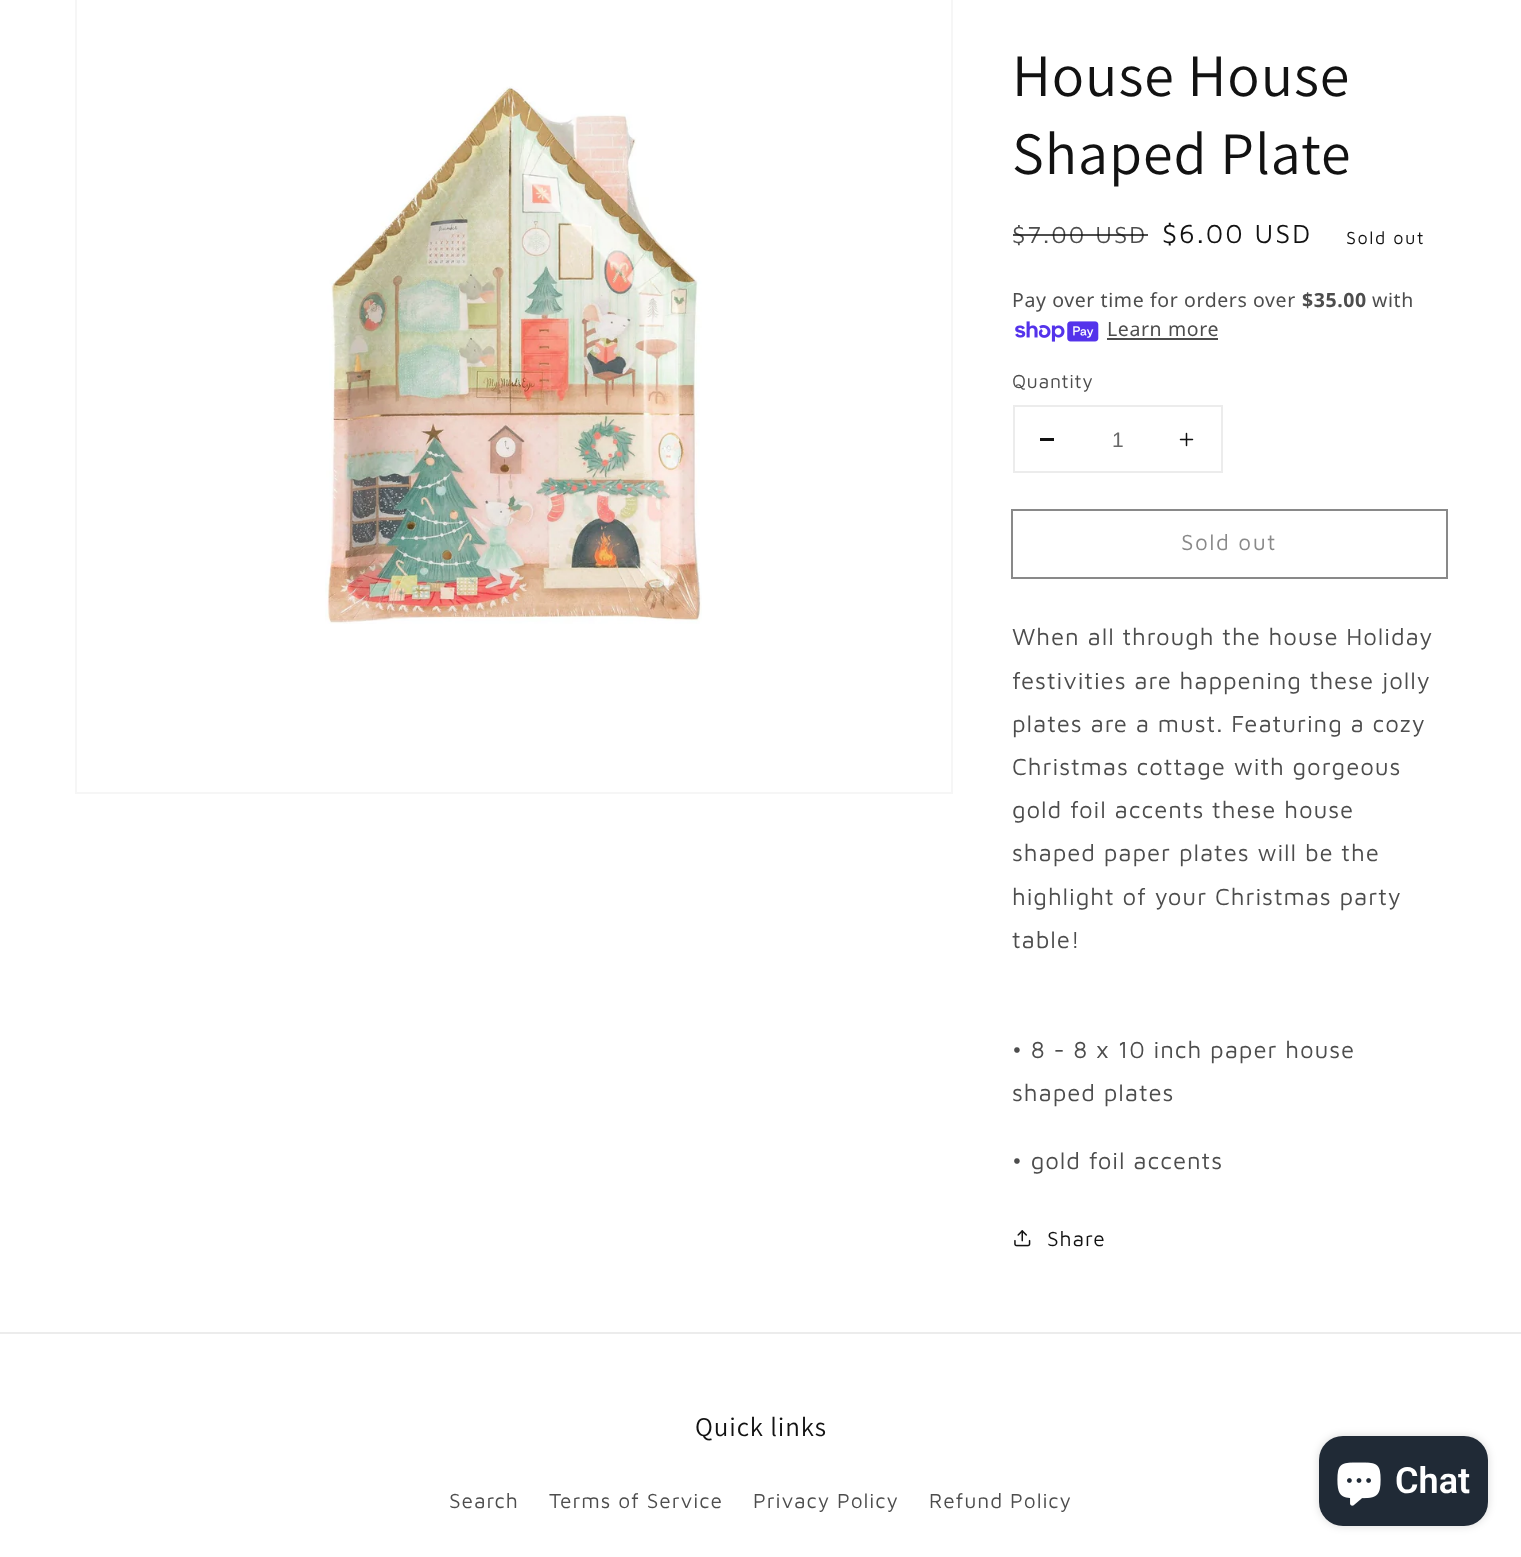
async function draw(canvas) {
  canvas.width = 1521
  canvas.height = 1557
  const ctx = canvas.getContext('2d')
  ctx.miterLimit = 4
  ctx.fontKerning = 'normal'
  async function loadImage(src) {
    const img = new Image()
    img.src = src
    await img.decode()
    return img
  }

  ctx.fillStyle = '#fff'
  ctx.fillRect(0, 0, 1521, 1557)
  ctx.strokeStyle = '#f6f6f6'
  ctx.lineWidth = 2
  ctx.strokeRect(76, -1, 876, 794)
  ctx.drawImage(await loadImage('image0.png'), 325, 86, 377, 538)
  ctx.letterSpacing = '0.9px'
  ctx.font = '60px Assistant'
  ctx.fillStyle = '#121212'
  ctx.fillText('House House', 1012, 96)
  ctx.fillText('Shaped Plate', 1012, 174)
  ctx.letterSpacing = '2px'
  ctx.font = '24px Maven Pro'
  ctx.fillStyle = '#4d4d4d'
  ctx.fillText('$7.00 USD', 1012, 243)
  ctx.fillStyle = '#121212bf'
  ctx.fillRect(1013, 234, 135, 2)
  ctx.font = '27px Maven Pro'
  ctx.fillStyle = '#121212'
  ctx.fillText('$6.00 USD', 1162, 243)
  ctx.letterSpacing = '1.5px'
  ctx.font = '18px Maven Pro'
  ctx.fillText('Sold out', 1346, 244)
  ctx.letterSpacing = '0.6px'
  ctx.font = '19.5px Noto Sans'
  ctx.fillStyle = '#4d4d4d'
  ctx.fillText('Pay over time for orders over', 1012, 307)
  ctx.font = 'bold 19.5px Noto Sans'
  ctx.fillText('$35.00', 1302, 307)
  ctx.font = '19.5px Noto Sans'
  ctx.fillText('with', 1372, 307)
  ctx.drawImage(await loadImage('image1.png'), 1015, 321, 84, 21)
  ctx.fillText('Learn more', 1107, 336)
  ctx.fillRect(1107, 338, 111, 2)
  ctx.font = '19.5px Maven Pro'
  ctx.fillText('Quantity', 1012, 388)
  ctx.strokeStyle = '#ececec'
  ctx.strokeRect(1014, 406, 208, 66)
  ctx.fillStyle = '#121212'
  ctx.fillRect(1040, 438, 14, 3)
  ctx.letterSpacing = '0px'
  ctx.font = '21px Liberation Sans'
  ctx.fillStyle = '#686868'
  ctx.fillText('1', 1112, 447)
  ctx.drawImage(await loadImage('image2.png'), 1179, 432, 15, 15)
  ctx.strokeStyle = '#898989'
  ctx.strokeRect(1012, 510, 435, 68)
  ctx.letterSpacing = '1.5px'
  ctx.font = '22.5px Maven Pro'
  ctx.fillStyle = '#898989'
  ctx.fillText('Sold out', 1181, 550)
  ctx.letterSpacing = '0.9px'
  ctx.font = '24px Maven Pro'
  ctx.fillStyle = '#4d4d4d'
  ctx.fillText('When all through the house Holiday', 1012, 645)
  ctx.fillText('festivities are happening these jolly', 1012, 689)
  ctx.fillText('plates are a must. Featuring a cozy', 1012, 732)
  ctx.fillText('Christmas cottage with gorgeous', 1012, 775)
  ctx.fillText('gold foil accents these house', 1012, 818)
  ctx.fillText('shaped paper plates will be the', 1012, 861)
  ctx.fillText('highlight of your Christmas party', 1012, 905)
  ctx.fillText('table!', 1012, 948)
  ctx.fillText('• 8 - 8 x 10 inch paper house', 1012, 1058)
  ctx.fillText('shaped plates', 1012, 1101)
  ctx.fillText('• gold foil accents', 1012, 1169)
  ctx.drawImage(await loadImage('image3.png'), 1014, 1230, 17, 17)
  ctx.font = '21px Maven Pro'
  ctx.fillStyle = '#121212'
  ctx.fillText('Share', 1047, 1246)
  ctx.fillStyle = '#ececec'
  ctx.fillRect(0, 1332, 1521, 2)
  ctx.font = '27px Assistant'
  ctx.fillStyle = '#121212'
  ctx.fillText('Quick links', 695, 1436)
  ctx.font = '21px Maven Pro'
  ctx.fillStyle = '#4d4d4d'
  ctx.fillText('Search', 449, 1508)
  ctx.fillText('Terms of Service', 549, 1508)
  ctx.fillText('Privacy Policy', 753, 1508)
  ctx.fillText('Refund Policy', 929, 1508)
  ctx.fillStyle = '#00000026'
  ctx.filter = 'blur(4px)'
  ctx.beginPath()
  ctx.roundRect(1319, 1436, 169, 90, 24)
  ctx.fill()
  ctx.filter = 'none'
  ctx.fillStyle = '#202a36'
  ctx.beginPath()
  ctx.roundRect(1319, 1436, 169, 90, 24)
  ctx.fill()
  ctx.drawImage(await loadImage('image4.png'), 1337, 1462, 44, 44)
  ctx.letterSpacing = '0px'
  ctx.font = '600 36px Roboto'
  ctx.fillStyle = '#fff'
  ctx.fillText('Chat', 1395, 1493)
}

draw(document.querySelector('canvas'))
